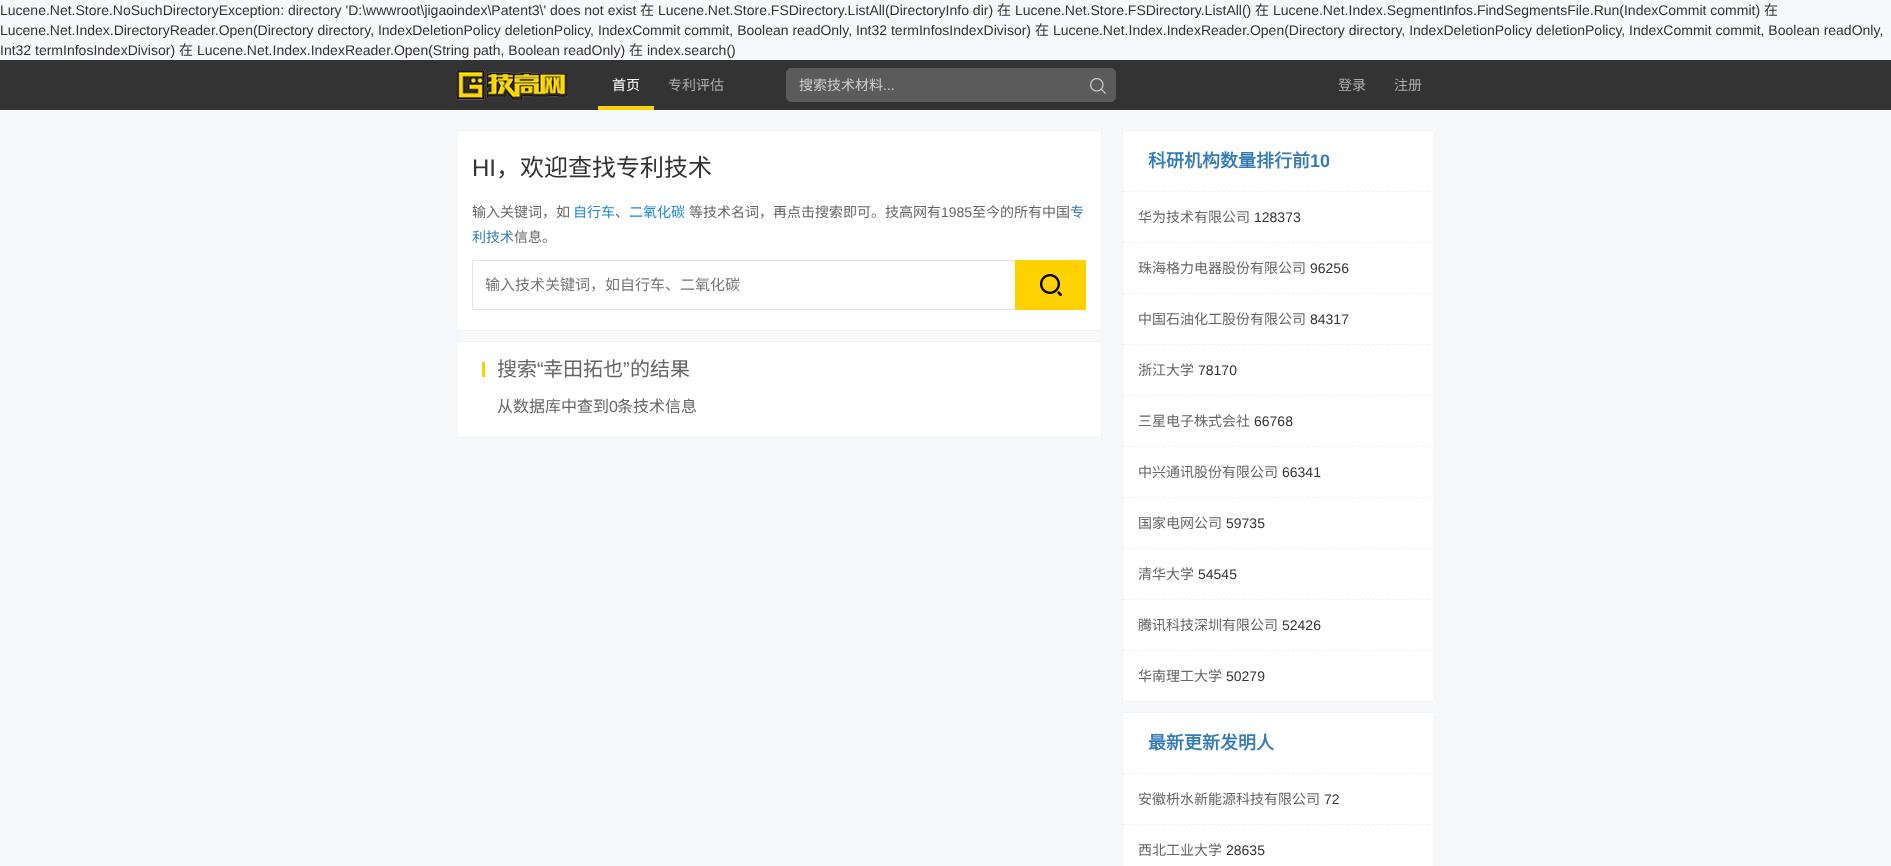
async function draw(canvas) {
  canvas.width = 1891
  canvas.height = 866
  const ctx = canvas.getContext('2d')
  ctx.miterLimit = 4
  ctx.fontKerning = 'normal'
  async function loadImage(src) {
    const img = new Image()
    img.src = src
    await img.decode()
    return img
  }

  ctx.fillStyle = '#f7f8fa'
  ctx.fillRect(0, 0, 1891, 866)
  ctx.font = '14px Liberation Sans'
  ctx.fillStyle = '#333'
  ctx.fillText('Lucene.Net.Store.NoSuchDirectoryException: directory \'D:\\wwwroot\\jigaoindex\\Patent3\\\' does not exist', 0, 15)
  ctx.font = '14px Noto Sans CJK SC'
  ctx.fillText('在', 640, 15)
  ctx.font = '14px Liberation Sans'
  ctx.fillText('Lucene.Net.Store.FSDirectory.ListAll(DirectoryInfo dir)', 658, 15)
  ctx.font = '14px Noto Sans CJK SC'
  ctx.fillText('在', 997, 15)
  ctx.font = '14px Liberation Sans'
  ctx.fillText('Lucene.Net.Store.FSDirectory.ListAll()', 1015, 15)
  ctx.font = '14px Noto Sans CJK SC'
  ctx.fillText('在', 1255, 15)
  ctx.font = '14px Liberation Sans'
  ctx.fillText('Lucene.Net.Index.SegmentInfos.FindSegmentsFile.Run(IndexCommit commit)', 1273, 15)
  ctx.font = '14px Noto Sans CJK SC'
  ctx.fillText('在', 1764, 15)
  ctx.font = '14px Liberation Sans'
  ctx.fillText('Lucene.Net.Index.DirectoryReader.Open(Directory directory, IndexDeletionPolicy deletionPolicy, IndexCommit commit, Boolean readOnly, Int32 termInfosIndexDivisor)', 0, 35)
  ctx.font = '14px Noto Sans CJK SC'
  ctx.fillText('在', 1035, 35)
  ctx.font = '14px Liberation Sans'
  ctx.fillText('Lucene.Net.Index.IndexReader.Open(Directory directory, IndexDeletionPolicy deletionPolicy, IndexCommit commit, Boolean readOnly,', 1053, 35)
  ctx.fillText('Int32 termInfosIndexDivisor)', 0, 55)
  ctx.font = '14px Noto Sans CJK SC'
  ctx.fillText('在', 179, 55)
  ctx.font = '14px Liberation Sans'
  ctx.fillText('Lucene.Net.Index.IndexReader.Open(String path, Boolean readOnly)', 197, 55)
  ctx.font = '14px Noto Sans CJK SC'
  ctx.fillText('在', 629, 55)
  ctx.font = '14px Liberation Sans'
  ctx.fillText('index.search()', 647, 55)
  ctx.fillRect(0, 60, 1891, 50)
  ctx.drawImage(await loadImage('image0.png'), 456, 70, 112, 30)
  ctx.font = '14px Noto Sans CJK SC'
  ctx.fillStyle = '#fff'
  ctx.fillText('首页', 612, 90)
  ctx.fillStyle = '#fed200'
  ctx.fillRect(598, 106, 56, 4)
  ctx.fillStyle = '#adadad'
  ctx.fillText('专利评估', 668, 90)
  ctx.fillText('登录', 1338, 90)
  ctx.fillText('注册', 1394, 90)
  ctx.fillStyle = '#5b5b5b'
  ctx.beginPath()
  ctx.roundRect(786.5, 68.5, 329, 33, 4.5)
  ctx.fill()
  ctx.strokeStyle = '#5b5b5b'
  ctx.stroke()
  ctx.fillStyle = '#cecece'
  ctx.fillText('搜索技术材料', 799, 90)
  ctx.font = '14px Liberation Sans'
  ctx.fillText('...', 883, 90)
  ctx.drawImage(await loadImage('image1.png'), 1090, 78, 16, 16)
  ctx.fillStyle = '#fff'
  ctx.beginPath()
  ctx.rect(456.5, 130.5, 645, 200)
  ctx.fill()
  ctx.strokeStyle = '#f2f2f5'
  ctx.stroke()
  ctx.font = '24px Liberation Sans'
  ctx.fillStyle = '#333'
  ctx.fillText('HI', 472, 176)
  ctx.font = '24px Noto Sans CJK SC'
  ctx.fillText('，欢迎查找专利技术', 496, 176)
  ctx.font = '14px Noto Sans CJK SC'
  ctx.fillStyle = '#666'
  ctx.fillText('输入关键词，如', 472, 217)
  ctx.fillStyle = '#1e89dc'
  ctx.fillText('自行车', 573, 217)
  ctx.fillStyle = '#666'
  ctx.fillText('、', 615, 217)
  ctx.fillStyle = '#1e89dc'
  ctx.fillText('二氧化碳', 629, 217)
  ctx.fillStyle = '#666'
  ctx.fillText('等技术名词，再点击搜索即可。技高网有', 689, 217)
  ctx.font = '14px Liberation Sans'
  ctx.fillText('1985', 941, 217)
  ctx.font = '14px Noto Sans CJK SC'
  ctx.fillText('至今的所有中国', 972, 217)
  ctx.fillStyle = '#337ab7'
  ctx.fillText('专', 1070, 217)
  ctx.fillText('利技术', 472, 242)
  ctx.fillStyle = '#666'
  ctx.fillText('信息。', 514, 242)
  ctx.strokeStyle = '#e5e5e5'
  ctx.strokeRect(472.5, 260.5, 543, 49)
  ctx.font = '15px Noto Sans CJK SC'
  ctx.fillStyle = '#757575'
  ctx.fillText('输入技术关键词，如自行车、二氧化碳', 485, 290)
  ctx.fillStyle = '#fed200'
  ctx.fillRect(1015, 260, 71, 50)
  ctx.drawImage(await loadImage('image2.png'), 1040, 274, 22, 22)
  ctx.fillStyle = '#fff'
  ctx.beginPath()
  ctx.rect(456.5, 341.5, 645, 96)
  ctx.fill()
  ctx.strokeStyle = '#f2f2f5'
  ctx.stroke()
  ctx.fillStyle = '#fed200'
  ctx.fillRect(482, 362, 3, 15)
  ctx.font = '20px Noto Sans CJK SC'
  ctx.fillStyle = '#666'
  ctx.fillText('搜索', 497, 376)
  ctx.font = '20px Liberation Sans'
  ctx.fillText('“', 537, 376)
  ctx.font = '20px Noto Sans CJK SC'
  ctx.fillText('幸田拓也', 543, 376)
  ctx.font = '20px Liberation Sans'
  ctx.fillText('”', 623, 376)
  ctx.font = '20px Noto Sans CJK SC'
  ctx.fillText('的结果', 630, 376)
  ctx.font = '16px Noto Sans CJK SC'
  ctx.fillText('从数据库中查到', 497, 412)
  ctx.font = '16px Liberation Sans'
  ctx.fillText('0', 609, 412)
  ctx.font = '16px Noto Sans CJK SC'
  ctx.fillText('条技术信息', 617, 412)
  ctx.fillStyle = '#fff'
  ctx.beginPath()
  ctx.rect(1122.5, 130.5, 312, 571)
  ctx.fill()
  ctx.stroke()
  ctx.font = 'bold 18px Noto Sans CJK SC'
  ctx.fillStyle = '#337ab7'
  ctx.fillText('科研机构数量排行前', 1148, 167)
  ctx.font = 'bold 18px Liberation Sans'
  ctx.fillText('10', 1310, 167)
  ctx.beginPath()
  ctx.moveTo(1123, 191.5)
  ctx.lineTo(1434, 191.5)
  ctx.setLineDash([3, 1.97])
  ctx.stroke()
  ctx.font = '14px Noto Sans CJK SC'
  ctx.fillStyle = '#666'
  ctx.fillText('华为技术有限公司', 1138, 222)
  ctx.font = '14px Liberation Sans'
  ctx.fillStyle = '#333'
  ctx.fillText('128373', 1254, 222)
  ctx.beginPath()
  ctx.moveTo(1123, 242.5)
  ctx.lineTo(1434, 242.5)
  ctx.stroke()
  ctx.font = '14px Noto Sans CJK SC'
  ctx.fillStyle = '#666'
  ctx.fillText('珠海格力电器股份有限公司', 1138, 273)
  ctx.font = '14px Liberation Sans'
  ctx.fillStyle = '#333'
  ctx.fillText('96256', 1310, 273)
  ctx.beginPath()
  ctx.moveTo(1123, 293.5)
  ctx.lineTo(1434, 293.5)
  ctx.stroke()
  ctx.font = '14px Noto Sans CJK SC'
  ctx.fillStyle = '#666'
  ctx.fillText('中国石油化工股份有限公司', 1138, 324)
  ctx.font = '14px Liberation Sans'
  ctx.fillStyle = '#333'
  ctx.fillText('84317', 1310, 324)
  ctx.beginPath()
  ctx.moveTo(1123, 344.5)
  ctx.lineTo(1434, 344.5)
  ctx.stroke()
  ctx.font = '14px Noto Sans CJK SC'
  ctx.fillStyle = '#666'
  ctx.fillText('浙江大学', 1138, 375)
  ctx.font = '14px Liberation Sans'
  ctx.fillStyle = '#333'
  ctx.fillText('78170', 1198, 375)
  ctx.beginPath()
  ctx.moveTo(1123, 395.5)
  ctx.lineTo(1434, 395.5)
  ctx.stroke()
  ctx.font = '14px Noto Sans CJK SC'
  ctx.fillStyle = '#666'
  ctx.fillText('三星电子株式会社', 1138, 426)
  ctx.font = '14px Liberation Sans'
  ctx.fillStyle = '#333'
  ctx.fillText('66768', 1254, 426)
  ctx.beginPath()
  ctx.moveTo(1123, 446.5)
  ctx.lineTo(1434, 446.5)
  ctx.stroke()
  ctx.font = '14px Noto Sans CJK SC'
  ctx.fillStyle = '#666'
  ctx.fillText('中兴通讯股份有限公司', 1138, 477)
  ctx.font = '14px Liberation Sans'
  ctx.fillStyle = '#333'
  ctx.fillText('66341', 1282, 477)
  ctx.beginPath()
  ctx.moveTo(1123, 497.5)
  ctx.lineTo(1434, 497.5)
  ctx.stroke()
  ctx.font = '14px Noto Sans CJK SC'
  ctx.fillStyle = '#666'
  ctx.fillText('国家电网公司', 1138, 528)
  ctx.font = '14px Liberation Sans'
  ctx.fillStyle = '#333'
  ctx.fillText('59735', 1226, 528)
  ctx.beginPath()
  ctx.moveTo(1123, 548.5)
  ctx.lineTo(1434, 548.5)
  ctx.stroke()
  ctx.font = '14px Noto Sans CJK SC'
  ctx.fillStyle = '#666'
  ctx.fillText('清华大学', 1138, 579)
  ctx.font = '14px Liberation Sans'
  ctx.fillStyle = '#333'
  ctx.fillText('54545', 1198, 579)
  ctx.beginPath()
  ctx.moveTo(1123, 599.5)
  ctx.lineTo(1434, 599.5)
  ctx.stroke()
  ctx.font = '14px Noto Sans CJK SC'
  ctx.fillStyle = '#666'
  ctx.fillText('腾讯科技深圳有限公司', 1138, 630)
  ctx.font = '14px Liberation Sans'
  ctx.fillStyle = '#333'
  ctx.fillText('52426', 1282, 630)
  ctx.beginPath()
  ctx.moveTo(1123, 650.5)
  ctx.lineTo(1434, 650.5)
  ctx.stroke()
  ctx.font = '14px Noto Sans CJK SC'
  ctx.fillStyle = '#666'
  ctx.fillText('华南理工大学', 1138, 681)
  ctx.font = '14px Liberation Sans'
  ctx.fillStyle = '#333'
  ctx.fillText('50279', 1226, 681)
  ctx.fillStyle = '#fff'
  ctx.beginPath()
  ctx.rect(1122.5, 712.5, 312, 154)
  ctx.fill()
  ctx.setLineDash([])
  ctx.stroke()
  ctx.font = 'bold 18px Noto Sans CJK SC'
  ctx.fillStyle = '#337ab7'
  ctx.fillText('最新更新发明人', 1148, 749)
  ctx.beginPath()
  ctx.moveTo(1123, 773.5)
  ctx.lineTo(1434, 773.5)
  ctx.setLineDash([3, 1.97])
  ctx.stroke()
  ctx.font = '14px Noto Sans CJK SC'
  ctx.fillStyle = '#666'
  ctx.fillText('安徽枡水新能源科技有限公司', 1138, 804)
  ctx.font = '14px Liberation Sans'
  ctx.fillStyle = '#333'
  ctx.fillText('72', 1324, 804)
  ctx.beginPath()
  ctx.moveTo(1123, 824.5)
  ctx.lineTo(1434, 824.5)
  ctx.stroke()
  ctx.font = '14px Noto Sans CJK SC'
  ctx.fillStyle = '#666'
  ctx.fillText('西北工业大学', 1138, 855)
  ctx.font = '14px Liberation Sans'
  ctx.fillStyle = '#333'
  ctx.fillText('28635', 1226, 855)
}

draw(document.querySelector('canvas'))
